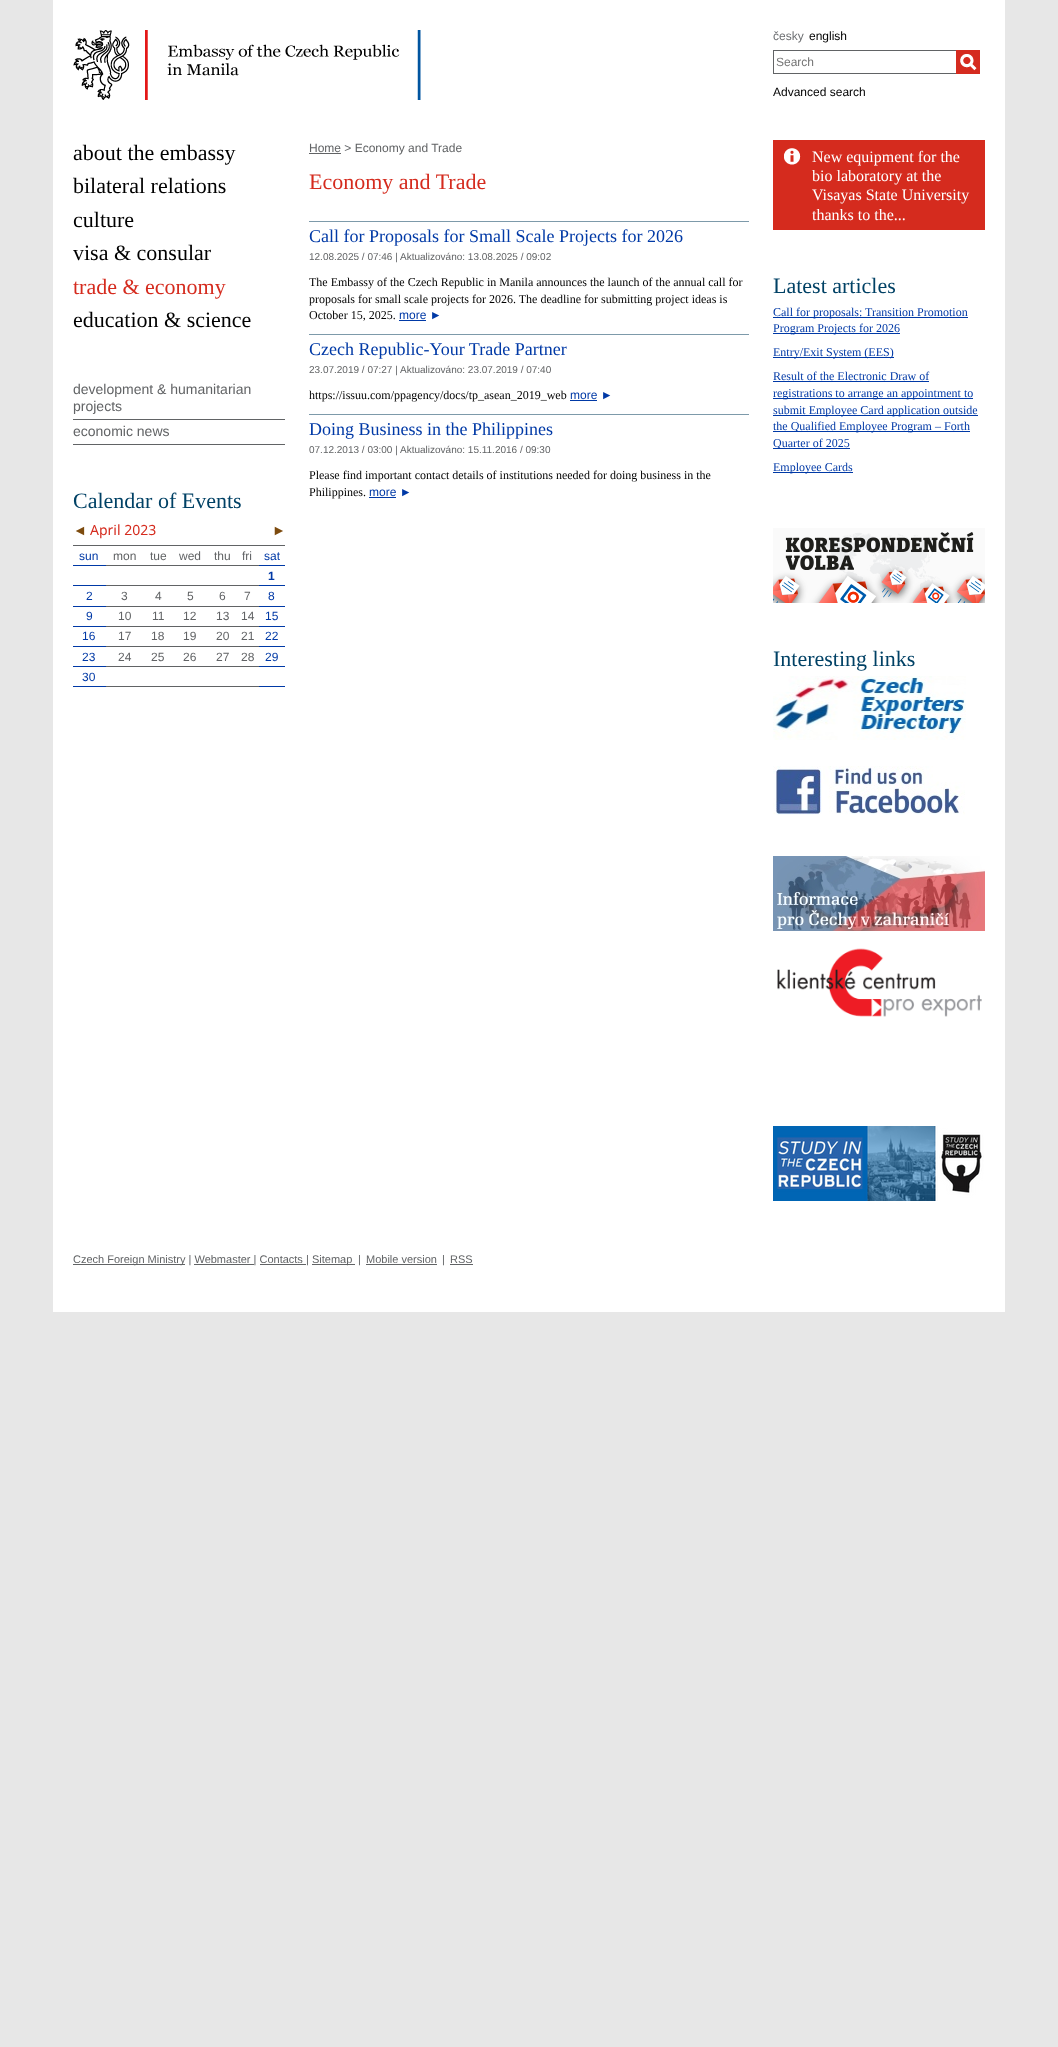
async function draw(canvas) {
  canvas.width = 1058
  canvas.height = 2047
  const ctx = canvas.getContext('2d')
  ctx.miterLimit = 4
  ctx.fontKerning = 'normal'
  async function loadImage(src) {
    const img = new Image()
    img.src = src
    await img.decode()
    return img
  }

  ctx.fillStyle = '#e7e7e7'
  ctx.fillRect(0, 0, 1058, 2047)
  ctx.fillStyle = '#fff'
  ctx.fillRect(53, 0, 952, 1312)
  ctx.drawImage(await loadImage('image0.png'), 73, 30, 348, 70)
  ctx.font = '12px Liberation Sans'
  ctx.fillStyle = '#6d6f72'
  ctx.fillText('česky', 773, 40)
  ctx.fillStyle = '#000'
  ctx.fillText('english', 809, 40)
  ctx.fillStyle = '#616365'
  ctx.fillRect(773, 50, 183, 1)
  ctx.fillRect(773, 73, 183, 1)
  ctx.fillRect(773, 50, 1, 24)
  ctx.fillStyle = '#757575'
  ctx.fillText('Search', 776, 66)
  ctx.drawImage(await loadImage('image1.png'), 956, 50, 24, 24)
  ctx.fillStyle = '#000'
  ctx.fillText('Advanced search', 773, 96)
  ctx.font = '22px Liberation Serif'
  ctx.fillText('about the embassy', 73, 160)
  ctx.fillText('bilateral relations', 73, 193)
  ctx.fillText('culture', 73, 227)
  ctx.fillText('visa & consular', 73, 260)
  ctx.fillStyle = '#d52b1e'
  ctx.fillText('trade & economy', 73, 294)
  ctx.fillStyle = '#000'
  ctx.fillText('education & science', 73, 327)
  ctx.fillStyle = '#616365'
  ctx.fillRect(309, 153, 32, 1)
  ctx.font = '12px Liberation Sans'
  ctx.fillText('Home > Economy and Trade', 309, 152)
  ctx.font = '22px Liberation Serif'
  ctx.fillStyle = '#d52b1e'
  ctx.fillText('Economy and Trade', 309, 189)
  ctx.fillStyle = '#7d9aaa'
  ctx.fillRect(309, 221, 440, 1)
  ctx.font = '18px Liberation Serif'
  ctx.fillStyle = '#0039a6'
  ctx.fillText('Call for Proposals for Small Scale Projects for 2026', 309, 242)
  ctx.font = '10px Liberation Sans'
  ctx.fillStyle = '#616365'
  ctx.fillText('12.08.2025 / 07:46 | Aktualizováno: 13.08.2025 / 09:02', 309, 260)
  ctx.font = '12px Liberation Serif'
  ctx.fillStyle = '#000'
  ctx.fillText('The Embassy of the Czech Republic in Manila announces the launch of the annual call for', 309, 286)
  ctx.fillText('proposals for small scale projects for 2026. The deadline for submitting project ideas is', 309, 303)
  ctx.fillText('October 15, 2025.', 309, 319)
  ctx.font = '12px Liberation Sans'
  ctx.fillStyle = '#0039a6'
  ctx.fillText('more ►', 399, 319)
  ctx.fillRect(399, 320, 27, 1)
  ctx.fillStyle = '#7d9aaa'
  ctx.fillRect(309, 334, 440, 1)
  ctx.font = '18px Liberation Serif'
  ctx.fillStyle = '#0039a6'
  ctx.fillText('Czech Republic-Your Trade Partner', 309, 355)
  ctx.font = '10px Liberation Sans'
  ctx.fillStyle = '#616365'
  ctx.fillText('23.07.2019 / 07:27 | Aktualizováno: 23.07.2019 / 07:40', 309, 373)
  ctx.font = '12px Liberation Serif'
  ctx.fillStyle = '#000'
  ctx.fillText('https://issuu.com/ppagency/docs/tp_asean_2019_web', 309, 399)
  ctx.font = '12px Liberation Sans'
  ctx.fillStyle = '#0039a6'
  ctx.fillText('more ►', 570, 399)
  ctx.fillRect(570, 400, 27, 1)
  ctx.fillStyle = '#7d9aaa'
  ctx.fillRect(309, 414, 440, 1)
  ctx.font = '18px Liberation Serif'
  ctx.fillStyle = '#0039a6'
  ctx.fillText('Doing Business in the Philippines', 309, 435)
  ctx.font = '10px Liberation Sans'
  ctx.fillStyle = '#616365'
  ctx.fillText('07.12.2013 / 03:00 | Aktualizováno: 15.11.2016 / 09:30', 309, 453)
  ctx.font = '12px Liberation Serif'
  ctx.fillStyle = '#000'
  ctx.fillText('Please find important contact details of institutions needed for doing business in the', 309, 479)
  ctx.fillText('Philippines.', 309, 496)
  ctx.font = '12px Liberation Sans'
  ctx.fillStyle = '#0039a6'
  ctx.fillText('more ►', 369, 496)
  ctx.fillRect(369, 497, 27, 1)
  ctx.fillStyle = '#616365'
  ctx.fillRect(73, 419, 212, 1)
  ctx.font = '14px Liberation Sans'
  ctx.fillText('development & humanitarian', 73, 394)
  ctx.fillText('projects', 73, 411)
  ctx.fillRect(73, 444, 212, 1)
  ctx.fillText('economic news', 73, 436)
  ctx.font = '22px Liberation Serif'
  ctx.fillStyle = '#004165'
  ctx.fillText('Calendar of Events', 73, 508)
  ctx.fillStyle = '#616365'
  ctx.fillRect(73, 545, 212, 1)
  ctx.font = '14px Liberation Serif'
  ctx.fillStyle = '#7d4b0e'
  ctx.fillText('◄', 73, 535)
  ctx.font = '14px Noto Sans'
  ctx.fillStyle = '#d52b1e'
  ctx.fillText('April 2023', 90, 535)
  ctx.font = '14px Liberation Serif'
  ctx.fillStyle = '#7d4b0e'
  ctx.fillText('►', 272, 535)
  ctx.fillStyle = '#0039a6'
  ctx.fillRect(258, 565, 27, 1)
  ctx.fillStyle = '#616365'
  ctx.fillRect(105, 565, 154, 1)
  ctx.fillStyle = '#0039a6'
  ctx.fillRect(73, 565, 33, 1)
  ctx.font = '12px Liberation Sans'
  ctx.fillText('sun', 79, 560)
  ctx.fillStyle = '#616365'
  ctx.fillText('mon', 113, 560)
  ctx.fillText('tue', 150, 560)
  ctx.fillText('wed', 179, 560)
  ctx.fillText('thu', 214, 560)
  ctx.fillText('fri', 242, 560)
  ctx.fillStyle = '#0039a6'
  ctx.fillText('sat', 264, 560)
  ctx.fillRect(258, 585, 27, 1)
  ctx.font = 'bold 12px Liberation Sans'
  ctx.fillText('1', 268, 580)
  ctx.fillStyle = '#616365'
  ctx.fillRect(105, 585, 154, 1)
  ctx.fillStyle = '#0039a6'
  ctx.fillRect(73, 585, 33, 1)
  ctx.fillRect(258, 606, 27, 1)
  ctx.fillStyle = '#616365'
  ctx.fillRect(105, 606, 154, 1)
  ctx.fillStyle = '#0039a6'
  ctx.fillRect(73, 606, 33, 1)
  ctx.font = '12px Liberation Sans'
  ctx.fillText('2', 86, 600)
  ctx.fillStyle = '#616365'
  ctx.fillText('3', 121, 600)
  ctx.fillText('4', 155, 600)
  ctx.fillText('5', 187, 600)
  ctx.fillText('6', 219, 600)
  ctx.fillText('7', 244, 600)
  ctx.fillStyle = '#0039a6'
  ctx.fillText('8', 268, 600)
  ctx.fillRect(258, 626, 27, 1)
  ctx.fillStyle = '#616365'
  ctx.fillRect(105, 626, 154, 1)
  ctx.fillStyle = '#0039a6'
  ctx.fillRect(73, 626, 33, 1)
  ctx.fillText('9', 86, 620)
  ctx.fillStyle = '#616365'
  ctx.fillText('10', 118, 620)
  ctx.fillText('11', 152, 620)
  ctx.fillText('12', 183, 620)
  ctx.fillText('13', 216, 620)
  ctx.fillText('14', 241, 620)
  ctx.fillStyle = '#0039a6'
  ctx.fillText('15', 265, 620)
  ctx.fillRect(258, 646, 27, 1)
  ctx.fillStyle = '#616365'
  ctx.fillRect(105, 646, 154, 1)
  ctx.fillStyle = '#0039a6'
  ctx.fillRect(73, 646, 33, 1)
  ctx.fillText('16', 82, 640)
  ctx.fillStyle = '#616365'
  ctx.fillText('17', 118, 640)
  ctx.fillText('18', 151, 640)
  ctx.fillText('19', 183, 640)
  ctx.fillText('20', 216, 640)
  ctx.fillText('21', 241, 640)
  ctx.fillStyle = '#0039a6'
  ctx.fillText('22', 265, 640)
  ctx.fillRect(258, 666, 27, 1)
  ctx.fillStyle = '#616365'
  ctx.fillRect(105, 666, 154, 1)
  ctx.fillStyle = '#0039a6'
  ctx.fillRect(73, 666, 33, 1)
  ctx.fillText('23', 82, 661)
  ctx.fillStyle = '#616365'
  ctx.fillText('24', 118, 661)
  ctx.fillText('25', 151, 661)
  ctx.fillText('26', 183, 661)
  ctx.fillText('27', 216, 661)
  ctx.fillText('28', 241, 661)
  ctx.fillStyle = '#0039a6'
  ctx.fillText('29', 265, 661)
  ctx.fillRect(258, 686, 27, 1)
  ctx.fillStyle = '#616365'
  ctx.fillRect(105, 686, 154, 1)
  ctx.fillStyle = '#0039a6'
  ctx.fillRect(73, 686, 33, 1)
  ctx.fillText('30', 82, 681)
  ctx.fillStyle = '#d52b1e'
  ctx.fillRect(773, 140, 212, 90)
  ctx.drawImage(await loadImage('image2.png'), 784, 148, 17, 17)
  ctx.font = '16px Liberation Serif'
  ctx.fillStyle = '#fff'
  ctx.fillText('New equipment for the', 812, 162)
  ctx.fillText('bio laboratory at the', 812, 181)
  ctx.fillText('Visayas State University', 812, 200)
  ctx.fillText('thanks to the...', 812, 220)
  ctx.font = '22px Liberation Serif'
  ctx.fillStyle = '#004165'
  ctx.fillText('Latest articles', 773, 293)
  ctx.fillStyle = '#0039a6'
  ctx.fillRect(773, 317, 195, 1)
  ctx.font = '12px Liberation Serif'
  ctx.fillText('Call for proposals: Transition Promotion', 773, 316)
  ctx.fillRect(773, 333, 127, 1)
  ctx.fillText('Program Projects for 2026', 773, 332)
  ctx.fillRect(773, 357, 121, 1)
  ctx.fillText('Entry/Exit System (EES)', 773, 356)
  ctx.fillText('Result of the Electronic Draw of', 773, 380)
  ctx.fillRect(773, 381, 156, 1)
  ctx.fillRect(773, 398, 200, 1)
  ctx.fillText('registrations to arrange an appointment to', 773, 397)
  ctx.fillRect(773, 415, 205, 1)
  ctx.fillText('submit Employee Card application outside', 773, 414)
  ctx.fillRect(773, 431, 197, 1)
  ctx.fillText('the Qualified Employee Program – Forth', 773, 430)
  ctx.fillRect(773, 448, 77, 1)
  ctx.fillText('Quarter of 2025', 773, 447)
  ctx.fillRect(773, 472, 80, 1)
  ctx.fillText('Employee Cards', 773, 471)
  ctx.drawImage(await loadImage('image3.png'), 773, 528, 212, 75)
  ctx.font = '22px Liberation Serif'
  ctx.fillStyle = '#004165'
  ctx.fillText('Interesting links', 773, 666)
  ctx.drawImage(await loadImage('image4.png'), 773, 676, 193, 64)
  ctx.drawImage(await loadImage('image5.png'), 773, 766, 192, 49)
  ctx.drawImage(await loadImage('image6.png'), 773, 856, 212, 75)
  ctx.drawImage(await loadImage('image7.png'), 777, 948, 205, 69)
  ctx.drawImage(await loadImage('image8.png'), 773, 1126, 211, 75)
  ctx.fillStyle = '#616365'
  ctx.fillRect(73, 1264, 112, 1)
  ctx.font = '11px Liberation Sans'
  ctx.fillText('Czech Foreign Ministry | Webmaster | Contacts |', 73, 1263)
  ctx.fillRect(312, 1264, 43, 1)
  ctx.fillText('Sitemap', 312, 1263)
  ctx.fillText('|', 358, 1263)
  ctx.fillText('Mobile version', 366, 1263)
  ctx.fillRect(366, 1264, 71, 1)
  ctx.fillText('|', 442, 1263)
  ctx.fillText('RSS', 450, 1263)
  ctx.fillRect(450, 1264, 23, 1)
  ctx.fillRect(194, 1264, 60, 1)
  ctx.fillRect(260, 1264, 46, 1)
}

draw(document.querySelector('canvas'))
